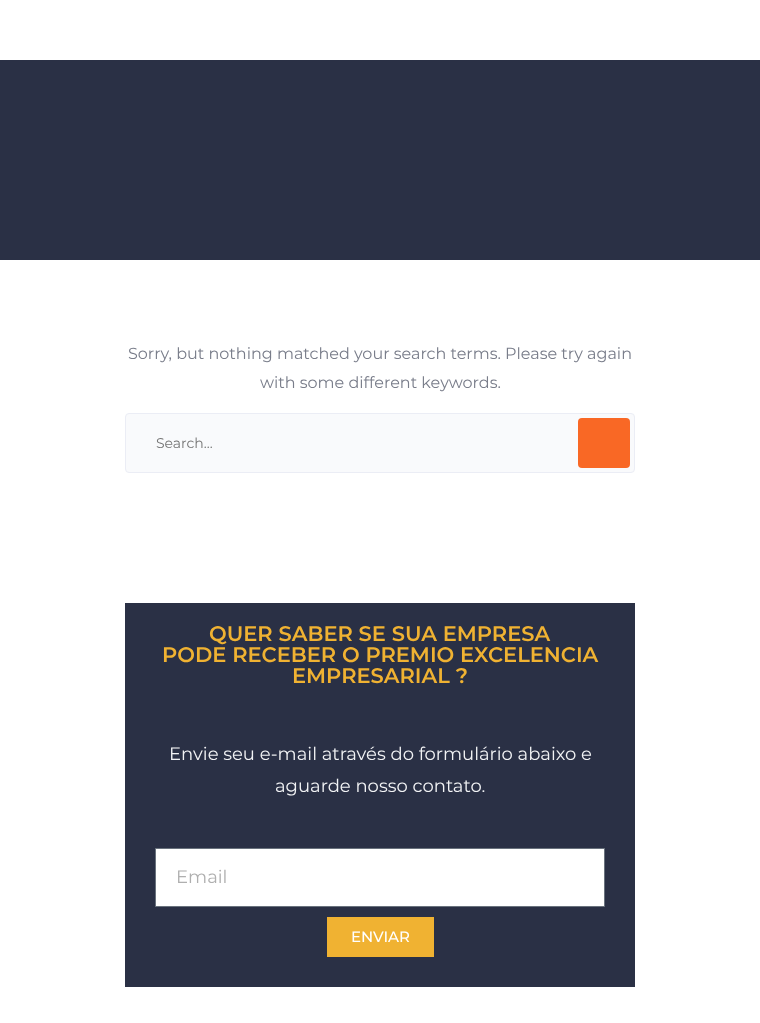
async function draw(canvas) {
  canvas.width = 760
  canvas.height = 1023
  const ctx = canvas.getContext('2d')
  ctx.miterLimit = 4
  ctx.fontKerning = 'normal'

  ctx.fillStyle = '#fff'
  ctx.fillRect(0, 0, 760, 1023)
  ctx.fillStyle = '#2a3045'
  ctx.fillRect(0, 60, 760, 200)
  ctx.font = '16px Montserrat'
  ctx.fillStyle = '#797d8a'
  ctx.fillText('Sorry, but nothing matched your search terms. Please try again', 128, 359)
  ctx.fillText('with some different keywords.', 260, 388)
  ctx.fillStyle = '#f9fafc'
  ctx.beginPath()
  ctx.roundRect(125.5, 413.5, 509, 59, 3.5)
  ctx.fill()
  ctx.strokeStyle = '#ebedf5'
  ctx.stroke()
  ctx.font = '14px Montserrat'
  ctx.fillStyle = '#757575'
  ctx.fillText('Search...', 156, 448)
  ctx.fillStyle = '#f96825'
  ctx.beginPath()
  ctx.roundRect(578, 418, 52, 50, 4)
  ctx.fill()
  ctx.fillStyle = '#2a3045'
  ctx.fillRect(125, 603, 510, 384)
  ctx.font = '600 21px Montserrat'
  ctx.fillStyle = '#f0b232'
  ctx.fillText('QUER SABER SE SUA EMPRESA', 209, 641)
  ctx.fillText('PODE RECEBER O PREMIO EXCELENCIA', 162, 662)
  ctx.fillText('EMPRESARIAL ?', 292, 683)
  ctx.font = '18px Montserrat'
  ctx.fillStyle = '#f2f3f5'
  ctx.fillText('Envie seu e-mail através do formulário abaixo e', 169, 760)
  ctx.fillText('aguarde nosso contato.', 275, 792)
  ctx.fillStyle = '#fff'
  ctx.beginPath()
  ctx.rect(155.5, 848.5, 449, 58)
  ctx.fill()
  ctx.strokeStyle = '#69727d'
  ctx.stroke()
  ctx.fillStyle = '#afafaf'
  ctx.fillText('Email', 176, 883)
  ctx.fillStyle = '#f0b232'
  ctx.fillRect(327, 917, 107, 40)
  ctx.font = '500 15px Montserrat'
  ctx.fillStyle = '#fff'
  ctx.fillText('ENVIAR', 351, 942)
}

draw(document.querySelector('canvas'))
